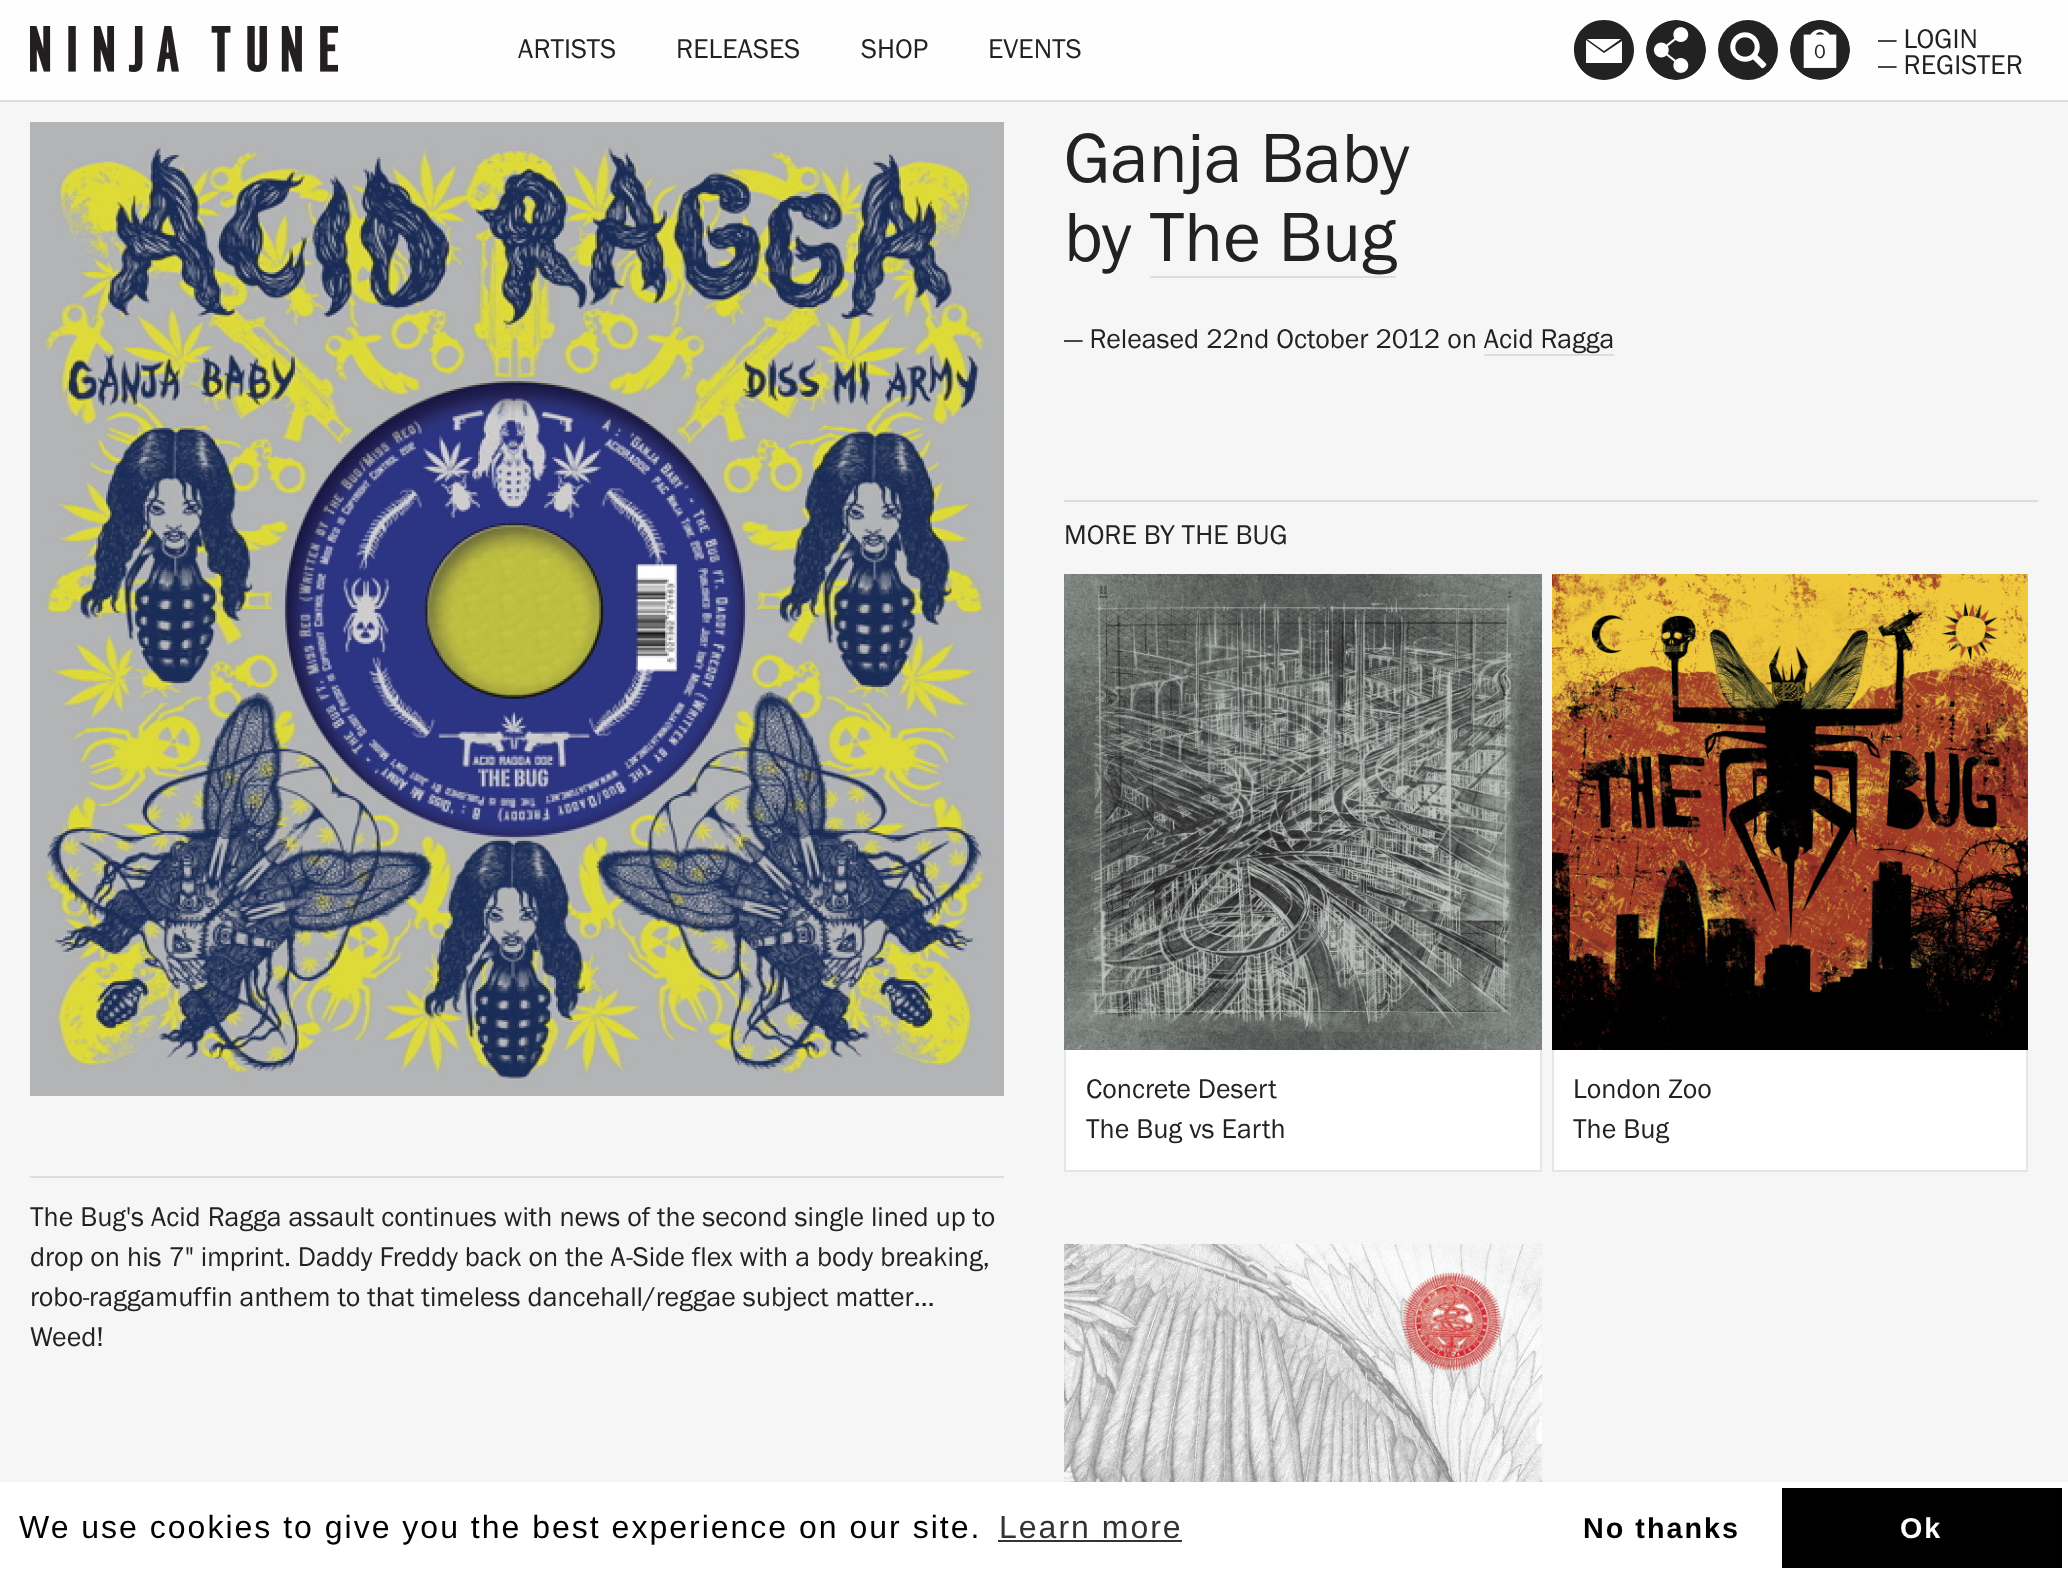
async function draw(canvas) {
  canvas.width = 2068
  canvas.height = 1573
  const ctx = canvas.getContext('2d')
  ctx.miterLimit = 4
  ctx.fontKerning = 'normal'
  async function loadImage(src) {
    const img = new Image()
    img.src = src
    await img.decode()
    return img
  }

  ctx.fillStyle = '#f6f6f6'
  ctx.fillRect(0, 0, 2068, 1573)
  ctx.fillStyle = '#ddd'
  ctx.fillRect(0, 100, 2068, 2)
  ctx.fillStyle = '#fefefe'
  ctx.fillRect(0, 0, 2068, 100)
  ctx.drawImage(await loadImage('image0.png'), 30, 26, 308, 46)
  ctx.font = '28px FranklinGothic'
  ctx.fillStyle = '#222'
  ctx.fillText('ARTISTS', 518, 58)
  ctx.fillText('RELEASES', 676, 58)
  ctx.fillText('SHOP', 861, 58)
  ctx.fillText('EVENTS', 988, 58)
  ctx.beginPath()
  ctx.moveTo(1604, 20)
  ctx.bezierCurveTo(1587, 20, 1574, 33, 1574, 50)
  ctx.bezierCurveTo(1574, 66, 1587, 80, 1604, 80)
  ctx.bezierCurveTo(1621, 80, 1634, 66, 1634, 50)
  ctx.bezierCurveTo(1634, 33, 1621, 20, 1604, 20)
  ctx.closePath()
  ctx.moveTo(1621, 39)
  ctx.lineTo(1587, 39)
  ctx.lineTo(1604, 51)
  ctx.closePath()
  ctx.moveTo(1622, 63)
  ctx.lineTo(1622, 41)
  ctx.lineTo(1604, 53)
  ctx.lineTo(1586, 40)
  ctx.lineTo(1586, 63)
  ctx.closePath()
  ctx.fill('evenodd')
  ctx.drawImage(await loadImage('image1.png'), 1646, 20, 60, 60)
  ctx.beginPath()
  ctx.arc(1748, 50, 30, 0, 2 * Math.PI)
  ctx.fill()
  ctx.drawImage(await loadImage('image2.png'), 1730, 32, 37, 37)
  ctx.drawImage(await loadImage('image3.png'), 1790, 20, 60, 60)
  ctx.font = '20px FranklinGothic'
  ctx.fillText('0', 1814, 58)
  ctx.font = '28px FranklinGothic'
  ctx.fillText('— LOGIN', 1878, 48)
  ctx.fillText('— REGISTER', 1878, 74)
  ctx.font = '72px FranklinGothic'
  ctx.fillText('Ganja Baby', 1064, 182)
  ctx.fillText('by The Bug', 1064, 261)
  ctx.fillStyle = '#ddd'
  ctx.fillRect(1150, 276, 246, 2)
  ctx.font = '28px FranklinGothic'
  ctx.fillStyle = '#222'
  ctx.fillText('— Released 22nd October 2012 on Acid Ragga', 1064, 348)
  ctx.fillStyle = '#ddd'
  ctx.fillRect(1484, 354, 130, 2)
  ctx.fillRect(1064, 500, 974, 2)
  ctx.fillStyle = '#222'
  ctx.fillText('MORE BY THE BUG', 1064, 544)
  ctx.drawImage(await loadImage('image4.png'), 1064, 574, 478, 476)
  ctx.fillStyle = '#777a78'
  ctx.fillText('BUY', 1296, 940)
  ctx.fillStyle = '#fff'
  ctx.fillRect(1064, 1050, 478, 122)
  ctx.fillStyle = '#e6e6e6'
  ctx.beginPath()
  ctx.moveTo(1542, 1050)
  ctx.lineTo(1542, 1172)
  ctx.lineTo(1540, 1170)
  ctx.lineTo(1540, 1050)
  ctx.closePath()
  ctx.fill()
  ctx.fillStyle = '#0000001a'
  ctx.beginPath()
  ctx.moveTo(1542, 1172)
  ctx.lineTo(1064, 1172)
  ctx.lineTo(1066, 1170)
  ctx.lineTo(1540, 1170)
  ctx.closePath()
  ctx.fill()
  ctx.beginPath()
  ctx.moveTo(1064, 1172)
  ctx.lineTo(1064, 1050)
  ctx.lineTo(1066, 1050)
  ctx.lineTo(1066, 1170)
  ctx.closePath()
  ctx.fill()
  ctx.fillStyle = '#222'
  ctx.fillText('Concrete Desert', 1086, 1098)
  ctx.fillText('The Bug vs Earth', 1086, 1138)
  ctx.drawImage(await loadImage('image5.png'), 1552, 574, 476, 476)
  ctx.fillStyle = '#665a27'
  ctx.fillText('LISTEN', 1730, 701)
  ctx.fillStyle = '#fff'
  ctx.fillRect(1552, 1050, 476, 122)
  ctx.fillStyle = '#e6e6e6'
  ctx.beginPath()
  ctx.moveTo(2028, 1050)
  ctx.lineTo(2028, 1172)
  ctx.lineTo(2026, 1170)
  ctx.lineTo(2026, 1050)
  ctx.closePath()
  ctx.fill()
  ctx.fillStyle = '#0000001a'
  ctx.beginPath()
  ctx.moveTo(2028, 1172)
  ctx.lineTo(1552, 1172)
  ctx.lineTo(1554, 1170)
  ctx.lineTo(2026, 1170)
  ctx.closePath()
  ctx.fill()
  ctx.beginPath()
  ctx.moveTo(1552, 1172)
  ctx.lineTo(1552, 1050)
  ctx.lineTo(1554, 1050)
  ctx.lineTo(1554, 1170)
  ctx.closePath()
  ctx.fill()
  ctx.fillStyle = '#222'
  ctx.fillText('London Zoo', 1573, 1098)
  ctx.fillText('The Bug', 1573, 1138)
  ctx.drawImage(await loadImage('image6.png'), 1064, 1244, 478, 238)
  ctx.drawImage(await loadImage('image7.png'), 30, 122, 974, 974)
  ctx.fillStyle = '#ddd'
  ctx.fillRect(30, 1176, 974, 2)
  ctx.fillStyle = '#222'
  ctx.fillText('The Bug\'s Acid Ragga assault continues with news of the second single lined up to', 30, 1226)
  ctx.fillText('drop on his 7" imprint. Daddy Freddy back on the A-Side flex with a body breaking,', 30, 1266)
  ctx.fillText('robo-raggamuffin anthem to that timeless dancehall/reggae subject matter…', 30, 1306)
  ctx.fillText('Weed!', 30, 1346)
  ctx.fillStyle = '#fff'
  ctx.fillRect(0, 1482, 2068, 91)
  ctx.letterSpacing = '2px'
  ctx.font = '32px Liberation Sans'
  ctx.fillStyle = '#000'
  ctx.fillText('We use cookies to give you the best experience on our site.', 19, 1538)
  ctx.fillStyle = '#333'
  ctx.fillText('Learn more', 999, 1538)
  ctx.fillRect(998, 1540, 184, 2)
  ctx.font = 'bold 28.75px Liberation Sans'
  ctx.fillStyle = '#000'
  ctx.fillText('No thanks', 1583, 1538)
  ctx.fillRect(1782, 1488, 280, 80)
  ctx.fillStyle = '#fff'
  ctx.fillText('Ok', 1900, 1538)
}

draw(document.querySelector('canvas'))
